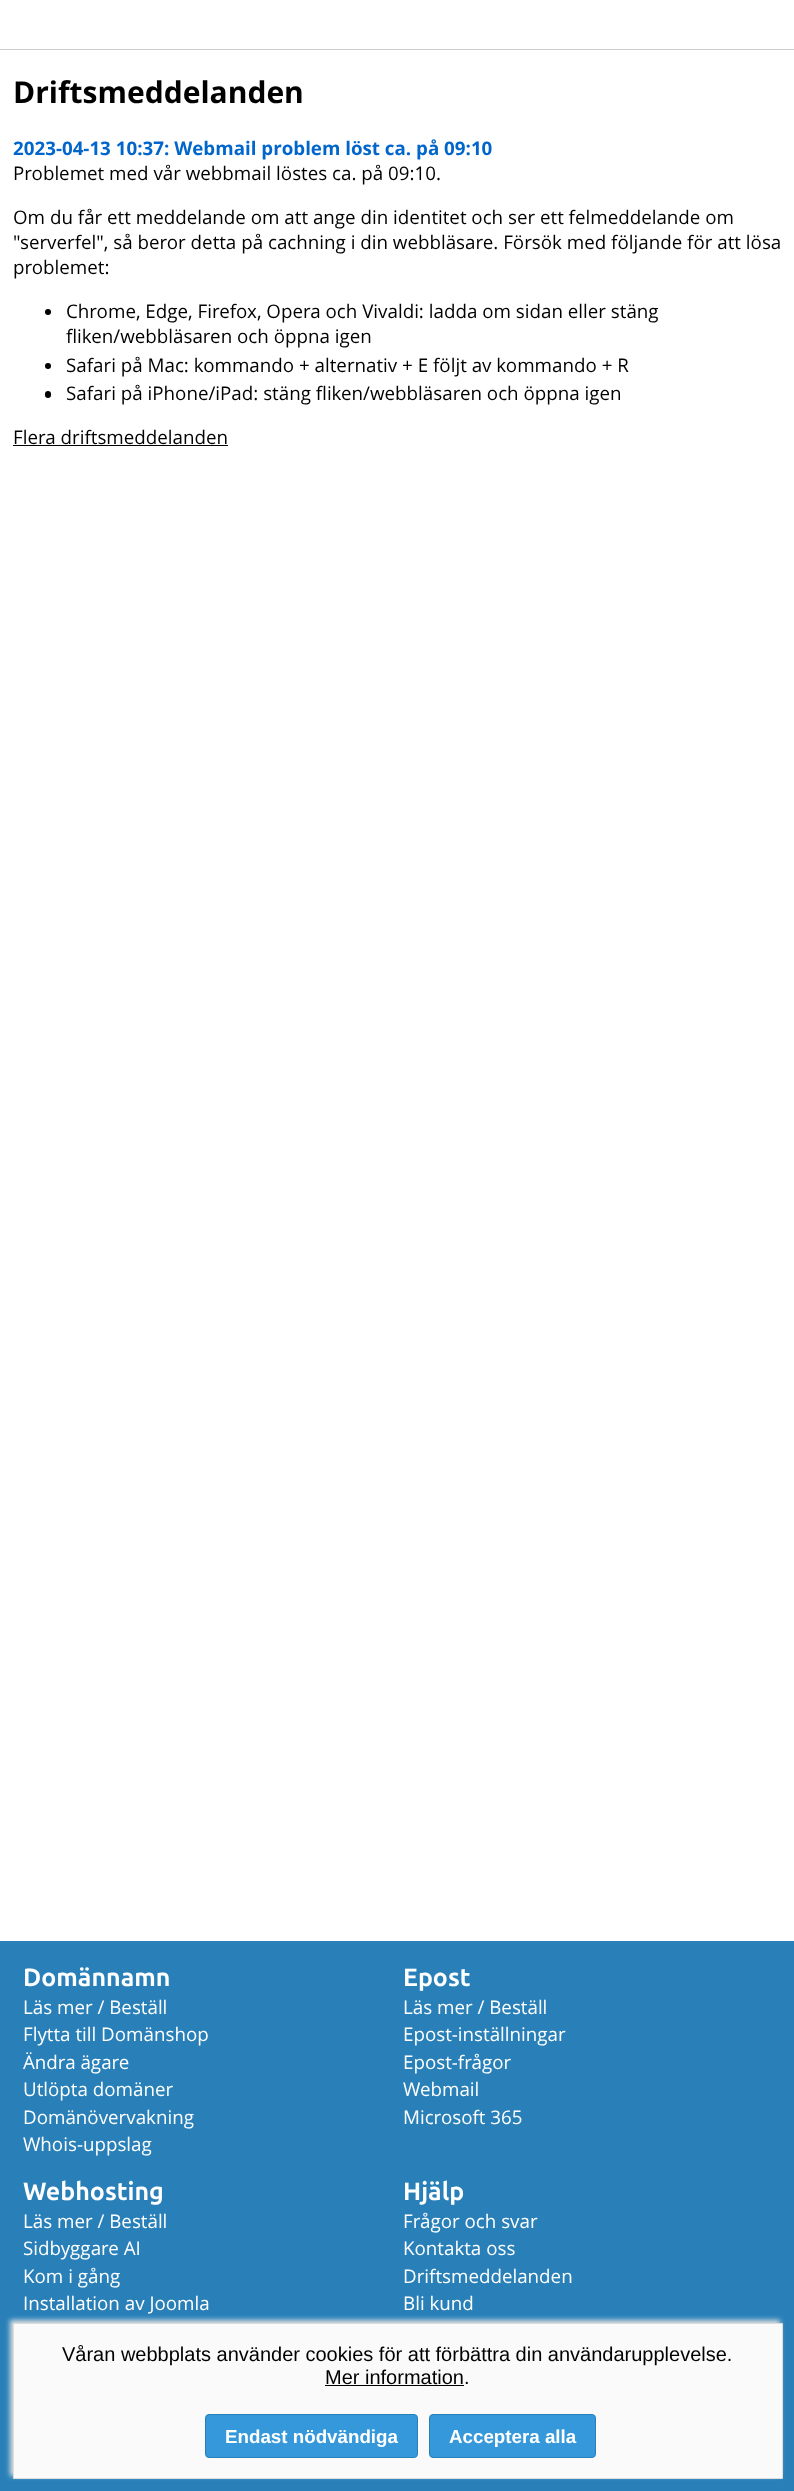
async function draw(canvas) {
  canvas.width = 794
  canvas.height = 2491
  const ctx = canvas.getContext('2d')
  ctx.miterLimit = 4
  ctx.fontKerning = 'normal'

  ctx.fillStyle = '#fff'
  ctx.fillRect(0, 0, 794, 2491)
  ctx.fillStyle = '#ccc'
  ctx.fillRect(0, 49, 794, 1)
  ctx.font = 'bold 30px Open Sans'
  ctx.fillStyle = '#000'
  ctx.fillText('Driftsmeddelanden', 13, 103)
  ctx.font = 'bold 18.75px Open Sans'
  ctx.fillStyle = '#06c'
  ctx.fillText('2023-04-13 10:37: Webmail problem löst ca. på 09:10', 13, 155)
  ctx.font = '18.75px Open Sans'
  ctx.fillStyle = '#000'
  ctx.fillText('Problemet med vår webbmail löstes ca. på 09:10.', 13, 180)
  ctx.fillText('Om du får ett meddelande om att ange din identitet och ser ett felmeddelande om', 13, 224)
  ctx.fillText('"serverfel", så beror detta på cachning i din webbläsare. Försök med följande för att lösa', 13, 249)
  ctx.fillText('problemet:', 13, 274)
  ctx.beginPath()
  ctx.arc(48, 312, 3, 0, 2 * Math.PI)
  ctx.fill()
  ctx.fillText('Chrome, Edge, Firefox, Opera och Vivaldi: ladda om sidan eller stäng', 66, 318)
  ctx.fillText('fliken/webbläsaren och öppna igen', 66, 343)
  ctx.beginPath()
  ctx.arc(48, 366, 3, 0, 2 * Math.PI)
  ctx.fill()
  ctx.fillText('Safari på Mac: kommando + alternativ + E följt av kommando + R', 66, 372)
  ctx.beginPath()
  ctx.roundRect(45, 391, 6, 7, 3)
  ctx.fill()
  ctx.fillText('Safari på iPhone/iPad: stäng fliken/webbläsaren och öppna igen', 66, 400)
  ctx.fillText('Flera driftsmeddelanden', 13, 444)
  ctx.fillRect(13, 445, 215, 1)
  ctx.fillStyle = '#2980b9'
  ctx.fillRect(0, 1941, 794, 550)
  ctx.font = 'bold 25px Ubuntu'
  ctx.fillStyle = '#fff'
  ctx.fillText('Domännamn', 23, 1986)
  ctx.font = '18.75px Open Sans'
  ctx.fillText('Läs mer / Beställ', 23, 2014)
  ctx.fillText('Flytta till Domänshop', 23, 2041)
  ctx.fillText('Ändra ägare', 23, 2069)
  ctx.fillText('Utlöpta domäner', 23, 2096)
  ctx.fillText('Domänövervakning', 23, 2124)
  ctx.fillText('Whois-uppslag', 23, 2151)
  ctx.font = 'bold 25px Ubuntu'
  ctx.fillText('Epost', 403, 1986)
  ctx.font = '18.75px Open Sans'
  ctx.fillText('Läs mer / Beställ', 403, 2014)
  ctx.fillText('Epost-inställningar', 403, 2041)
  ctx.fillText('Epost-frågor', 403, 2069)
  ctx.fillText('Webmail', 403, 2096)
  ctx.fillText('Microsoft 365', 403, 2124)
  ctx.font = 'bold 25px Ubuntu'
  ctx.fillText('Webhosting', 23, 2200)
  ctx.font = '18.75px Open Sans'
  ctx.fillText('Läs mer / Beställ', 23, 2228)
  ctx.fillText('Sidbyggare AI', 23, 2255)
  ctx.fillText('Kom i gång', 23, 2283)
  ctx.fillText('Installation av Joomla', 23, 2310)
  ctx.font = 'bold 25px Ubuntu'
  ctx.fillText('Hjälp', 403, 2200)
  ctx.font = '18.75px Open Sans'
  ctx.fillText('Frågor och svar', 403, 2228)
  ctx.fillText('Kontakta oss', 403, 2255)
  ctx.fillText('Driftsmeddelanden', 403, 2283)
  ctx.fillText('Bli kund', 403, 2310)
  ctx.fillStyle = '#ddd'
  ctx.filter = 'blur(2.5px)'
  ctx.beginPath()
  ctx.rect(10, 2320, 770, 156)
  ctx.fill()
  ctx.filter = 'none'
  ctx.fillStyle = '#fafafa'
  ctx.beginPath()
  ctx.rect(13.5, 2323.5, 769, 155)
  ctx.fill()
  ctx.strokeStyle = '#ddd'
  ctx.stroke()
  ctx.font = '20px Liberation Sans'
  ctx.fillStyle = '#000'
  ctx.fillText('Våran webbplats använder cookies för att förbättra din användarupplevelse.', 62, 2361)
  ctx.fillText('Mer information.', 325, 2384)
  ctx.fillRect(325, 2385, 139, 1)
  ctx.fillStyle = '#3498db'
  ctx.beginPath()
  ctx.roundRect(205.5, 2414.5, 212, 43, 3.5)
  ctx.fill()
  ctx.strokeStyle = '#2980b9'
  ctx.stroke()
  ctx.font = 'bold 18.75px Liberation Sans'
  ctx.fillStyle = '#fff'
  ctx.fillText('Endast nödvändiga', 225, 2443)
  ctx.fillStyle = '#3498db'
  ctx.beginPath()
  ctx.roundRect(429.5, 2414.5, 166, 43, 3.5)
  ctx.fill()
  ctx.stroke()
  ctx.fillStyle = '#fff'
  ctx.fillText('Acceptera alla', 449, 2443)
}

draw(document.querySelector('canvas'))
